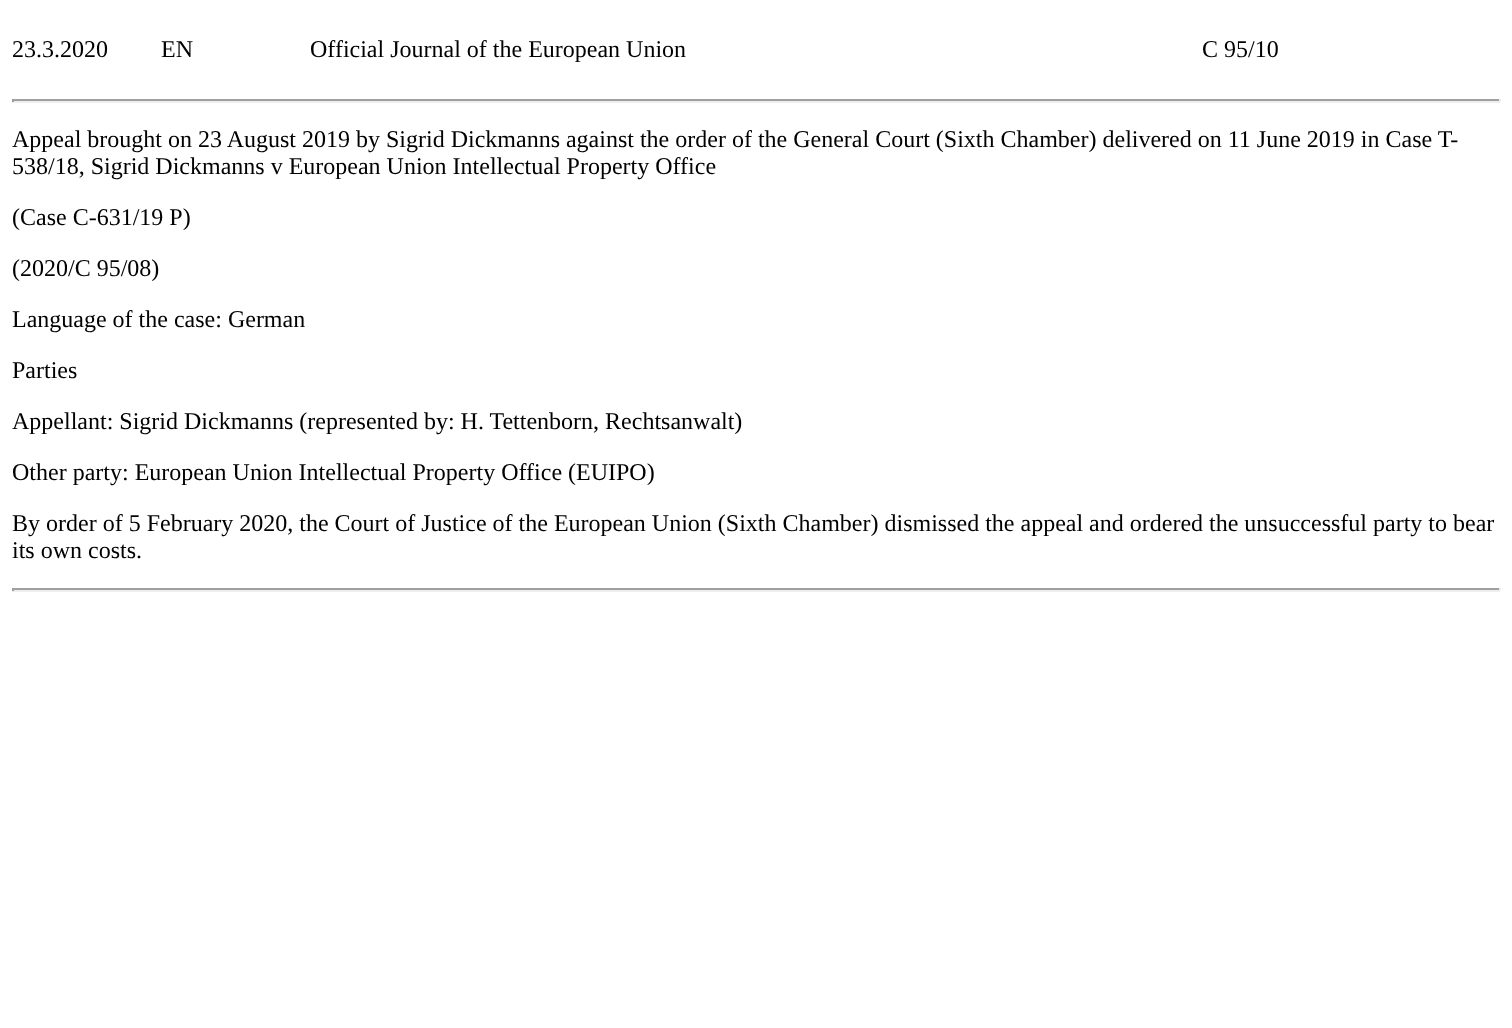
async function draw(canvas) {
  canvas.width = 1512
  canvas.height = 1028
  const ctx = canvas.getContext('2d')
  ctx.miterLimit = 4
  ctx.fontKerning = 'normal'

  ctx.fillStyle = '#fff'
  ctx.fillRect(0, 0, 1512, 1028)
  ctx.font = '24px Liberation Serif'
  ctx.fillStyle = '#000'
  ctx.fillText('23.3.2020', 12, 57)
  ctx.fillText('EN', 161, 57)
  ctx.fillText('Official Journal of the European Union', 310, 57)
  ctx.fillText('C 95/10', 1202, 57)
  ctx.fillStyle = '#9f9f9f'
  ctx.fillRect(12, 99, 1488, 2)
  ctx.fillStyle = '#eee'
  ctx.fillRect(1499, 99, 2, 3)
  ctx.fillRect(12, 101, 1488, 2)
  ctx.fillStyle = '#9f9f9f'
  ctx.fillRect(12, 99, 2, 3)
  ctx.fillStyle = '#000'
  ctx.fillText('Appeal brought on 23 August 2019 by Sigrid Dickmanns against the order of the General Court (Sixth Chamber) delivered on 11 June 2019 in Case T-', 12, 147)
  ctx.fillText('538/18, Sigrid Dickmanns v European Union Intellectual Property Office', 12, 174)
  ctx.fillText('(Case C-631/19 P)', 12, 225)
  ctx.fillText('(2020/C 95/08)', 12, 276)
  ctx.fillText('Language of the case: German', 12, 327)
  ctx.fillText('Parties', 12, 378)
  ctx.fillText('Appellant: Sigrid Dickmanns (represented by: H. Tettenborn, Rechtsanwalt)', 12, 429)
  ctx.fillText('Other party: European Union Intellectual Property Office (EUIPO)', 12, 480)
  ctx.fillText('By order of 5 February 2020, the Court of Justice of the European Union (Sixth Chamber) dismissed the appeal and ordered the unsuccessful party to bear', 12, 531)
  ctx.fillText('its own costs.', 12, 558)
  ctx.fillStyle = '#9f9f9f'
  ctx.fillRect(12, 588, 1488, 2)
  ctx.fillStyle = '#eee'
  ctx.fillRect(1499, 588, 2, 3)
  ctx.fillRect(12, 590, 1488, 2)
  ctx.fillStyle = '#9f9f9f'
  ctx.fillRect(12, 588, 2, 3)
}

draw(document.querySelector('canvas'))
